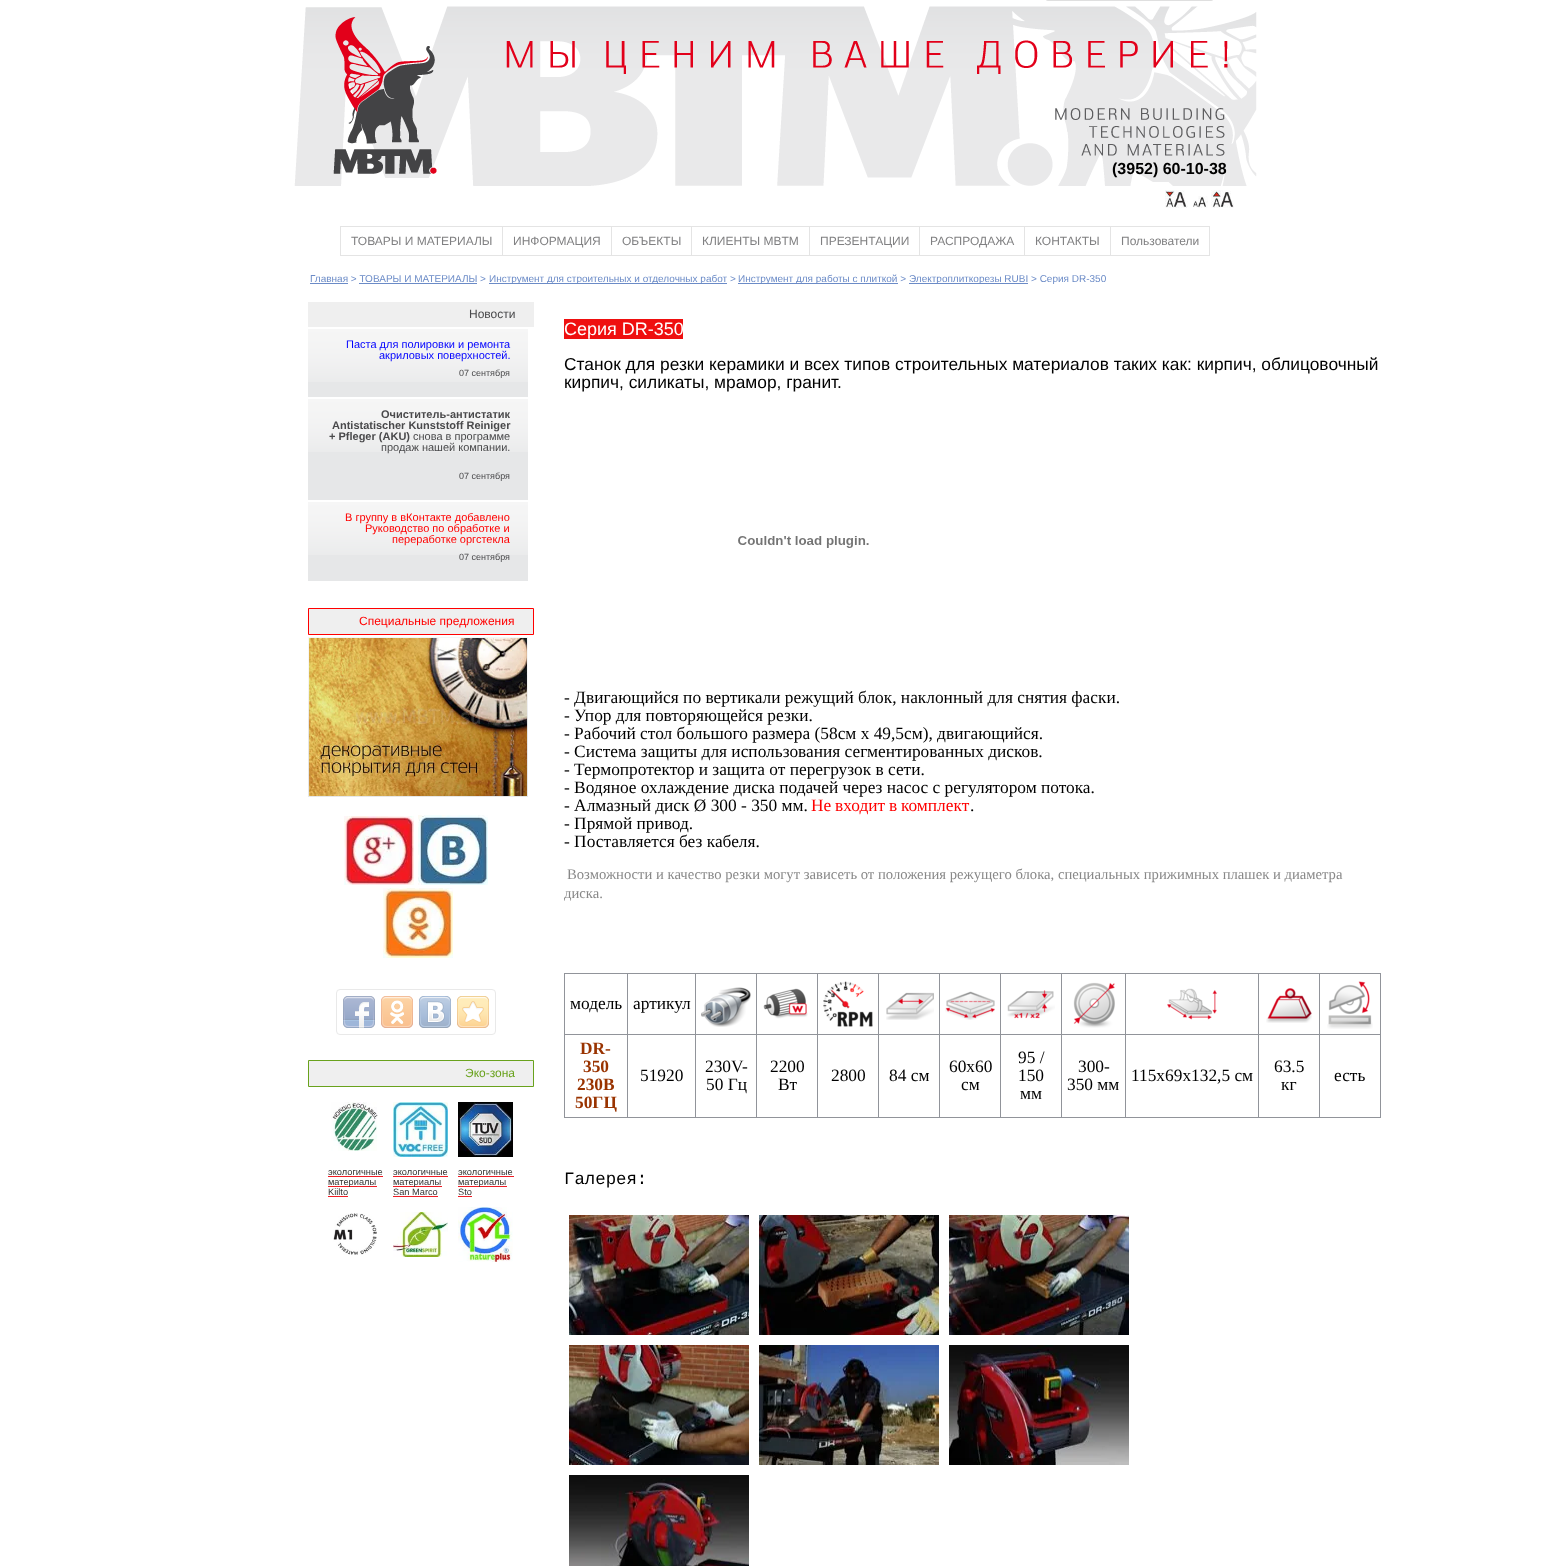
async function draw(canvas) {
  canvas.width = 1550
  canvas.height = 1566
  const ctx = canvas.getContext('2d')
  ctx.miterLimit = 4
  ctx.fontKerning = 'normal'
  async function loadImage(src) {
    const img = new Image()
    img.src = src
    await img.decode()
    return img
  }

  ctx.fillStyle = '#fff'
  ctx.fillRect(0, 0, 1550, 1566)
  ctx.drawImage(await loadImage('image0.png'), 294, 6, 963, 180)
  ctx.drawImage(await loadImage('image1.png'), 1046, 0, 167, 1)
  ctx.font = 'bold 16px Liberation Sans'
  ctx.fillStyle = '#000'
  ctx.fillText('(3952) 60-10-38', 1112, 174)
  ctx.drawImage(await loadImage('image2.png'), 1165, 190, 23, 18)
  ctx.drawImage(await loadImage('image3.png'), 1193, 196, 15, 12)
  ctx.drawImage(await loadImage('image4.png'), 1211, 190, 23, 18)
  ctx.fillStyle = '#e4e4e4'
  ctx.fillRect(340, 255, 870, 1)
  ctx.fillRect(340, 226, 1, 30)
  ctx.fillRect(341, 226, 869, 1)
  ctx.fillRect(502, 226, 1, 29)
  ctx.font = '12px Liberation Sans'
  ctx.fillStyle = '#808082'
  ctx.fillText('ТОВАРЫ И МАТЕРИАЛЫ', 351, 245)
  ctx.fillStyle = '#e4e4e4'
  ctx.fillRect(611, 226, 1, 29)
  ctx.fillStyle = '#808082'
  ctx.fillText('ИНФОРМАЦИЯ', 513, 245)
  ctx.fillStyle = '#e4e4e4'
  ctx.fillRect(691, 226, 1, 29)
  ctx.fillStyle = '#808082'
  ctx.fillText('ОБЪЕКТЫ', 622, 245)
  ctx.fillStyle = '#e4e4e4'
  ctx.fillRect(809, 226, 1, 29)
  ctx.fillStyle = '#808082'
  ctx.fillText('КЛИЕНТЫ MBTM', 702, 245)
  ctx.fillStyle = '#e4e4e4'
  ctx.fillRect(919, 226, 1, 29)
  ctx.fillStyle = '#808082'
  ctx.fillText('ПРЕЗЕНТАЦИИ', 820, 245)
  ctx.fillStyle = '#e4e4e4'
  ctx.fillRect(1024, 226, 1, 29)
  ctx.fillStyle = '#808082'
  ctx.fillText('РАСПРОДАЖА', 930, 245)
  ctx.fillStyle = '#e4e4e4'
  ctx.fillRect(1110, 226, 1, 29)
  ctx.fillStyle = '#808082'
  ctx.fillText('КОНТАКТЫ', 1035, 245)
  ctx.fillStyle = '#e4e4e4'
  ctx.fillRect(1209, 226, 1, 29)
  ctx.fillStyle = '#808082'
  ctx.fillText('Пользователи', 1121, 245)
  ctx.font = '10px Liberation Sans'
  ctx.fillStyle = '#6b8bc7'
  ctx.fillText('Главная > ТОВАРЫ И МАТЕРИАЛЫ >', 310, 282)
  ctx.fillRect(310, 283, 38, 1)
  ctx.fillRect(489, 283, 238, 1)
  ctx.fillText('Инструмент для строительных и отделочных работ >', 489, 282)
  ctx.fillRect(738, 283, 160, 1)
  ctx.fillText('Инструмент для работы с плиткой >', 738, 282)
  ctx.fillRect(909, 283, 119, 1)
  ctx.fillText('Электроплиткорезы RUBI > Серия DR-350', 909, 282)
  ctx.fillRect(359, 283, 118, 1)
  ctx.fillStyle = '#efefef'
  ctx.fillRect(308, 302, 226, 25)
  ctx.font = '12px Liberation Sans'
  ctx.fillStyle = '#49494b'
  ctx.fillText('Новости', 469, 318)
  ctx.fillStyle = '#e6e7e8'
  ctx.fillRect(308, 382, 220, 15)
  ctx.drawImage(await loadImage('image5.png'), 308, 329, 220, 53)
  ctx.font = '11px Liberation Sans'
  ctx.fillStyle = '#00f'
  ctx.fillText('Паста для полировки и ремонта', 346, 348)
  ctx.fillText('акриловых поверхностей.', 379, 359)
  ctx.font = '9px Liberation Sans'
  ctx.fillStyle = '#49494b'
  ctx.fillText('07 сентября', 459, 376)
  ctx.fillStyle = '#e6e7e8'
  ctx.fillRect(308, 452, 220, 48)
  ctx.drawImage(await loadImage('image5.png'), 308, 399, 220, 53)
  ctx.font = 'bold 11px Liberation Sans'
  ctx.fillStyle = '#49494b'
  ctx.fillText('Очиститель-антистатик', 381, 418)
  ctx.fillText('Antistatischer Kunststoff Reiniger', 332, 429)
  ctx.fillText('+ Pfleger (AKU)', 329, 440)
  ctx.font = '11px Liberation Sans'
  ctx.fillText('снова в программе', 413, 440)
  ctx.fillText('продаж нашей компании.', 381, 451)
  ctx.font = '9px Liberation Sans'
  ctx.fillText('07 сентября', 459, 479)
  ctx.fillStyle = '#e6e7e8'
  ctx.fillRect(308, 555, 220, 26)
  ctx.drawImage(await loadImage('image5.png'), 308, 502, 220, 53)
  ctx.font = '11px Liberation Sans'
  ctx.fillStyle = '#f00'
  ctx.fillText('В группу в вКонтакте добавлено', 345, 521)
  ctx.fillText('Руководство по обработке и', 365, 532)
  ctx.fillText('переработке оргстекла', 392, 543)
  ctx.font = '9px Liberation Sans'
  ctx.fillStyle = '#49494b'
  ctx.fillText('07 сентября', 459, 560)
  ctx.fillStyle = '#efefef'
  ctx.beginPath()
  ctx.rect(308.5, 608.5, 225, 26)
  ctx.fill()
  ctx.strokeStyle = '#f00'
  ctx.stroke()
  ctx.font = '12px Liberation Sans'
  ctx.fillStyle = '#f00'
  ctx.fillText('Специальные предложения', 359, 625)
  ctx.fillStyle = '#e6e7e8'
  ctx.fillRect(308, 717, 220, 80)
  ctx.drawImage(await loadImage('image6.png'), 308, 637, 220, 80)
  ctx.drawImage(await loadImage('image7.png'), 309, 638, 218, 158)
  ctx.drawImage(await loadImage('image8.png'), 344, 816, 70, 69)
  ctx.drawImage(await loadImage('image9.png'), 418, 815, 70, 70)
  ctx.drawImage(await loadImage('image10.png'), 383, 888, 70, 70)
  ctx.beginPath()
  ctx.roundRect(336.5, 989.5, 159, 45, 3.5)
  ctx.strokeStyle = '#e9e9e9'
  ctx.stroke()
  ctx.drawImage(await loadImage('image11.png'), 343, 996, 32, 32)
  ctx.drawImage(await loadImage('image12.png'), 381, 996, 32, 32)
  ctx.drawImage(await loadImage('image13.png'), 419, 996, 32, 32)
  ctx.drawImage(await loadImage('image14.png'), 457, 996, 32, 32)
  ctx.fillStyle = '#efefef'
  ctx.beginPath()
  ctx.rect(308.5, 1060.5, 225, 26)
  ctx.fill()
  ctx.strokeStyle = '#69a21d'
  ctx.stroke()
  ctx.fillStyle = '#69a21d'
  ctx.fillText('Эко-зона', 465, 1077)
  ctx.drawImage(await loadImage('image15.png'), 331, 1102, 47, 49)
  ctx.drawImage(await loadImage('image16.png'), 393, 1102, 55, 55)
  ctx.drawImage(await loadImage('image17.png'), 458, 1102, 55, 55)
  ctx.font = '9.25px Liberation Sans'
  ctx.fillStyle = '#333'
  ctx.fillText('экологичные', 328, 1175)
  ctx.fillStyle = '#ee1d25'
  ctx.fillRect(328, 1176, 55, 1)
  ctx.fillRect(328, 1186, 49, 1)
  ctx.fillStyle = '#333'
  ctx.fillText('материалы', 328, 1185)
  ctx.fillText('Kiilto', 328, 1195)
  ctx.fillStyle = '#ee1d25'
  ctx.fillRect(328, 1196, 20, 1)
  ctx.fillStyle = '#333'
  ctx.fillText('экологичные', 393, 1175)
  ctx.fillStyle = '#ee1d25'
  ctx.fillRect(393, 1176, 55, 1)
  ctx.fillRect(393, 1186, 49, 1)
  ctx.fillStyle = '#333'
  ctx.fillText('материалы', 393, 1185)
  ctx.fillText('San Marco', 393, 1195)
  ctx.fillStyle = '#ee1d25'
  ctx.fillRect(393, 1196, 45, 1)
  ctx.fillStyle = '#333'
  ctx.fillText('экологичные', 458, 1175)
  ctx.fillStyle = '#ee1d25'
  ctx.fillRect(458, 1176, 56, 1)
  ctx.fillRect(458, 1186, 49, 1)
  ctx.fillStyle = '#333'
  ctx.fillText('материалы', 458, 1185)
  ctx.fillText('Sto', 458, 1195)
  ctx.fillStyle = '#ee1d25'
  ctx.fillRect(458, 1196, 14, 1)
  ctx.drawImage(await loadImage('image18.png'), 333, 1213, 44, 42)
  ctx.drawImage(await loadImage('image19.png'), 393, 1212, 55, 45)
  ctx.drawImage(await loadImage('image20.png'), 458, 1207, 55, 55)
  ctx.fillStyle = '#ef0f0f'
  ctx.fillRect(564, 319, 119, 20)
  ctx.font = '18px Liberation Sans'
  ctx.fillStyle = '#fff'
  ctx.fillText('Серия DR-350', 564, 335)
  ctx.font = '17.35px Liberation Sans'
  ctx.fillStyle = '#000'
  ctx.fillText('Станок для резки керамики и всех типов строительных материалов таких как: кирпич, облицовочный', 564, 370)
  ctx.fillText('кирпич, силикаты, мрамор, гранит.', 564, 388)
  ctx.drawImage(await loadImage('image21.png'), 738, 536, 131, 12)
  ctx.font = '17.35px Liberation Serif'
  ctx.fillText('- Двигающийся по вертикали режущий блок, наклонный для снятия фаски.', 564, 703)
  ctx.fillText('- Упор для повторяющейся резки.', 564, 721)
  ctx.fillText('- Рабочий стол большого размера (58см х 49,5см), двигающийся.', 564, 739)
  ctx.fillText('- Система защиты для использования сегментированных дисков.', 564, 757)
  ctx.fillText('- Термопротектор и защита от перегрузок в сети.', 564, 775)
  ctx.fillText('- Водяное охлаждение диска подачей через насос с регулятором потока.', 564, 793)
  ctx.fillText('- Алмазный диск Ø 300 - 350 мм.', 564, 811)
  ctx.wordSpacing = '-0.5px'
  ctx.fillStyle = '#f00'
  ctx.fillText('Не входит в комплект', 811, 811)
  ctx.wordSpacing = '0px'
  ctx.fillStyle = '#000'
  ctx.fillText('.', 970, 811)
  ctx.fillText('- Прямой привод.', 564, 829)
  ctx.fillText('- Поставляется без кабеля.', 564, 847)
  ctx.font = '14.67px Liberation Serif'
  ctx.fillStyle = '#888'
  ctx.fillText('Возможности и качество резки могут зависеть от положения режущего блока, специальных прижимных плашек и диаметра', 567, 879)
  ctx.fillText('диска.', 564, 898)
  ctx.fillStyle = '#91949a'
  ctx.fillRect(1319, 973, 62, 1)
  ctx.fillRect(1319, 1034, 62, 1)
  ctx.fillRect(1380, 1034, 1, 84)
  ctx.fillRect(1319, 1117, 62, 1)
  ctx.fillRect(1319, 1034, 1, 84)
  ctx.fillRect(1258, 1034, 62, 1)
  ctx.fillRect(1319, 973, 1, 62)
  ctx.fillRect(1258, 973, 62, 1)
  ctx.fillRect(1258, 1117, 62, 1)
  ctx.fillRect(1258, 1034, 1, 84)
  ctx.fillRect(1125, 1034, 134, 1)
  ctx.fillRect(1258, 973, 1, 62)
  ctx.fillRect(1125, 973, 134, 1)
  ctx.fillRect(1125, 1117, 134, 1)
  ctx.fillRect(1125, 1034, 1, 84)
  ctx.fillRect(1061, 1034, 65, 1)
  ctx.fillRect(1125, 973, 1, 62)
  ctx.fillRect(1061, 973, 65, 1)
  ctx.fillRect(1061, 1117, 65, 1)
  ctx.fillRect(1061, 1034, 1, 84)
  ctx.fillRect(1000, 1034, 62, 1)
  ctx.fillRect(1061, 973, 1, 62)
  ctx.fillRect(1000, 973, 62, 1)
  ctx.fillRect(1000, 1117, 62, 1)
  ctx.fillRect(1000, 1034, 1, 84)
  ctx.fillRect(939, 1034, 62, 1)
  ctx.fillRect(1000, 973, 1, 62)
  ctx.fillRect(939, 973, 62, 1)
  ctx.fillRect(939, 1117, 62, 1)
  ctx.fillRect(939, 1034, 1, 84)
  ctx.fillRect(878, 1034, 62, 1)
  ctx.fillRect(939, 973, 1, 62)
  ctx.fillRect(878, 973, 62, 1)
  ctx.fillRect(878, 1117, 62, 1)
  ctx.fillRect(878, 1034, 1, 84)
  ctx.fillRect(817, 1034, 62, 1)
  ctx.fillRect(878, 973, 1, 62)
  ctx.fillRect(817, 973, 62, 1)
  ctx.fillRect(817, 1117, 62, 1)
  ctx.fillRect(817, 1034, 1, 84)
  ctx.fillRect(756, 1034, 62, 1)
  ctx.fillRect(817, 973, 1, 62)
  ctx.fillRect(756, 973, 62, 1)
  ctx.fillRect(756, 1117, 62, 1)
  ctx.fillRect(756, 1034, 1, 84)
  ctx.fillRect(695, 1034, 62, 1)
  ctx.fillRect(756, 973, 1, 62)
  ctx.fillRect(695, 973, 62, 1)
  ctx.fillRect(695, 1117, 62, 1)
  ctx.fillRect(695, 1034, 1, 84)
  ctx.fillRect(627, 1034, 69, 1)
  ctx.fillRect(695, 973, 1, 62)
  ctx.fillRect(627, 973, 69, 1)
  ctx.fillRect(627, 1117, 69, 1)
  ctx.fillRect(627, 1034, 1, 84)
  ctx.fillRect(564, 1034, 64, 1)
  ctx.fillRect(627, 973, 1, 62)
  ctx.fillRect(564, 973, 64, 1)
  ctx.fillRect(564, 1117, 64, 1)
  ctx.fillRect(564, 1034, 1, 84)
  ctx.fillRect(564, 973, 1, 62)
  ctx.font = '17.35px Liberation Serif'
  ctx.fillStyle = '#000'
  ctx.fillText('модель', 570, 1009)
  ctx.fillText('артикул', 633, 1009)
  ctx.drawImage(await loadImage('image22.png'), 701, 987, 50, 40)
  ctx.drawImage(await loadImage('image23.png'), 763, 988, 45, 31)
  ctx.drawImage(await loadImage('image24.png'), 823, 981, 50, 46)
  ctx.drawImage(await loadImage('image25.png'), 886, 992, 48, 28)
  ctx.drawImage(await loadImage('image26.png'), 945, 991, 50, 29)
  ctx.drawImage(await loadImage('image27.png'), 1007, 990, 48, 29)
  ctx.drawImage(await loadImage('image28.png'), 1073, 982, 42, 46)
  ctx.drawImage(await loadImage('image29.png'), 1167, 988, 50, 32)
  ctx.drawImage(await loadImage('image30.png'), 1266, 988, 46, 35)
  ctx.fillStyle = '#91949a'
  ctx.fillRect(1380, 973, 1, 62)
  ctx.drawImage(await loadImage('image31.png'), 1327, 981, 46, 48)
  ctx.font = 'bold 17.35px Liberation Serif'
  ctx.fillStyle = '#930'
  ctx.fillText('DR-', 580, 1054)
  ctx.fillText('350', 583, 1072)
  ctx.fillText('230В', 577, 1090)
  ctx.fillText('50ГЦ', 575, 1108)
  ctx.font = '17.35px Liberation Serif'
  ctx.fillStyle = '#000'
  ctx.fillText('51920', 640, 1081)
  ctx.fillText('230V-', 705, 1072)
  ctx.fillText('50 Гц', 706, 1090)
  ctx.fillText('2200', 770, 1072)
  ctx.fillText('Вт', 778, 1090)
  ctx.fillText('2800', 831, 1081)
  ctx.fillText('84 см', 889, 1081)
  ctx.fillText('60x60', 949, 1072)
  ctx.fillText('см', 961, 1090)
  ctx.fillText('95 /', 1018, 1063)
  ctx.fillText('150', 1018, 1081)
  ctx.fillText('мм', 1020, 1099)
  ctx.fillText('300-', 1078, 1072)
  ctx.fillText('350 мм', 1067, 1090)
  ctx.fillText('115x69x132,5 см', 1131, 1081)
  ctx.fillText('63.5', 1274, 1072)
  ctx.fillText('кг', 1281, 1090)
  ctx.fillText('есть', 1334, 1081)
  ctx.font = '17.35px Liberation Mono'
  ctx.fillText('Галерея:', 564, 1184)
  ctx.drawImage(await loadImage('image32.png'), 569, 1215, 180, 120)
  ctx.drawImage(await loadImage('image33.png'), 759, 1215, 180, 120)
  ctx.drawImage(await loadImage('image34.png'), 949, 1215, 180, 120)
  ctx.drawImage(await loadImage('image35.png'), 569, 1345, 180, 120)
  ctx.drawImage(await loadImage('image36.png'), 759, 1345, 180, 120)
  ctx.drawImage(await loadImage('image37.png'), 949, 1345, 180, 120)
  ctx.drawImage(await loadImage('image38.png'), 569, 1475, 180, 91)
}

draw(document.querySelector('canvas'))
